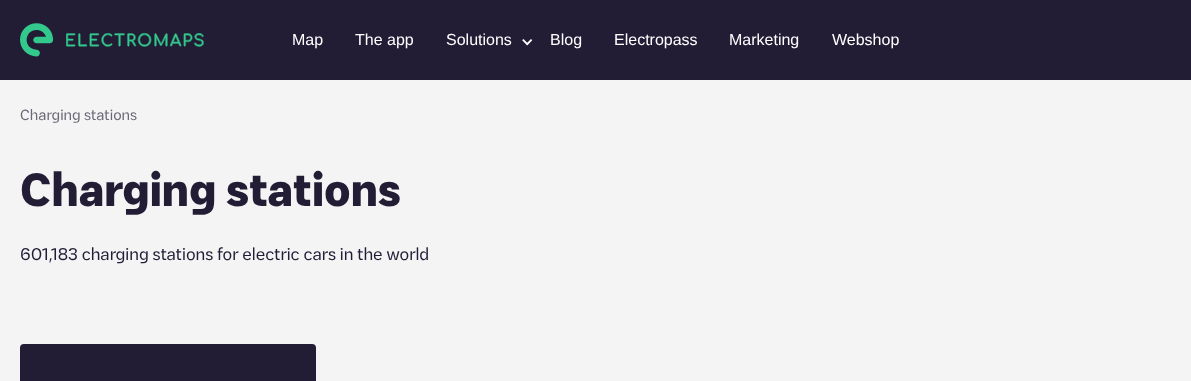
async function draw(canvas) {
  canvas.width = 1191
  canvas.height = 381
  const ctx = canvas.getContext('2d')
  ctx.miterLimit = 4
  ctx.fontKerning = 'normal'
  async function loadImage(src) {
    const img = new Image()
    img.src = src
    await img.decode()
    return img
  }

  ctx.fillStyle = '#f4f4f5'
  ctx.fillRect(0, 0, 1191, 381)
  ctx.fillStyle = '#221c35'
  ctx.fillRect(0, 0, 1191, 80)
  ctx.drawImage(await loadImage('image0.png'), 20, 23, 184, 34)
  ctx.font = '16px Liberation Sans'
  ctx.fillStyle = '#fff'
  ctx.fillText('Map', 292, 45)
  ctx.fillText('The app', 355, 45)
  ctx.fillText('Solutions', 446, 45)
  ctx.drawImage(await loadImage('image1.png'), 522, 39, 11, 7)
  ctx.fillText('Blog', 550, 45)
  ctx.fillText('Electropass', 614, 45)
  ctx.fillText('Marketing', 729, 45)
  ctx.fillText('Webshop', 832, 45)
  ctx.font = '14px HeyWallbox'
  ctx.fillStyle = '#6c6878'
  ctx.fillText('Charging stations', 20, 120)
  ctx.font = 'bold 44px HeyWallbox'
  ctx.fillStyle = '#221c35'
  ctx.fillText('Charging stations', 20, 206)
  ctx.font = '16px HeyWallbox'
  ctx.fillText('601,183 charging stations for electric cars in the world', 20, 260)
  ctx.beginPath()
  ctx.roundRect(20, 344, 296, 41, 4)
  ctx.fill()
}

draw(document.querySelector('canvas'))
